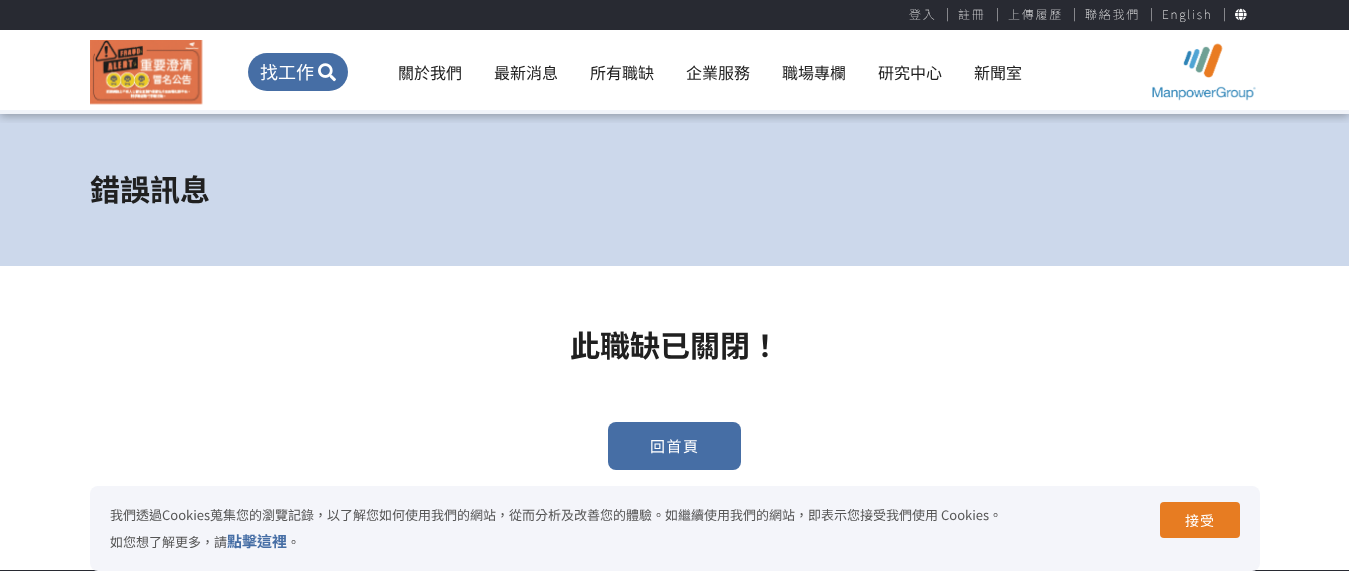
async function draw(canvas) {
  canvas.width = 1349
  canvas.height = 571
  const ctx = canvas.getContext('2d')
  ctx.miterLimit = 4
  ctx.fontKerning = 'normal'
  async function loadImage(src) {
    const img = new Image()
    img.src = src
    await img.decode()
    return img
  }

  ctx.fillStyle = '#fff'
  ctx.fillRect(0, 0, 1349, 571)
  ctx.fillStyle = '#ccd8eb'
  ctx.fillRect(0, 114, 1349, 152)
  ctx.fillStyle = '#f0f3f9'
  ctx.fillRect(0, 110, 1349, 4)
  ctx.save()
  ctx.beginPath()
  ctx.rect(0, 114, 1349, 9)
  ctx.clip()
  ctx.fillStyle = '#0000004d'
  ctx.filter = 'blur(5px)'
  ctx.beginPath()
  ctx.rect(0, 2, 1349, 114)
  ctx.fill()
  ctx.filter = 'none'
  ctx.restore()
  ctx.fillStyle = '#282a32'
  ctx.fillRect(0, 0, 1349, 30)
  ctx.letterSpacing = '1.75px'
  ctx.font = '100 12px Noto Sans TC'
  ctx.fillStyle = '#fff'
  ctx.fillText('登入', 909, 19)
  ctx.fillText('|', 946, 18)
  ctx.fillText('註冊', 958, 19)
  ctx.fillText('|', 996, 18)
  ctx.fillText('上傳履歷', 1008, 19)
  ctx.fillText('|', 1073, 18)
  ctx.fillText('聯絡我們', 1085, 19)
  ctx.fillText('|', 1150, 18)
  ctx.fillText('English', 1162, 19)
  ctx.fillText('|', 1223, 18)
  ctx.drawImage(await loadImage('image0.png'), 1235, 8, 12, 13)
  ctx.drawImage(await loadImage('image1.png'), 90, 40, 113, 65)
  ctx.fillStyle = '#466ea5'
  ctx.beginPath()
  ctx.roundRect(248, 53, 100, 38, 19)
  ctx.fill()
  ctx.letterSpacing = '0px'
  ctx.font = '18px Noto Sans TC'
  ctx.fillStyle = '#fff'
  ctx.fillText('找工作', 260, 79)
  ctx.drawImage(await loadImage('image2.png'), 318, 63, 18, 19)
  ctx.font = '16px Noto Sans TC'
  ctx.fillStyle = '#202020'
  ctx.fillText('關於我們', 398, 79)
  ctx.fillText('最新消息', 494, 79)
  ctx.fillText('所有職缺', 590, 79)
  ctx.fillText('企業服務', 686, 79)
  ctx.fillText('職場專欄', 782, 79)
  ctx.fillText('研究中心', 878, 79)
  ctx.fillText('新聞室', 974, 79)
  ctx.drawImage(await loadImage('image3.png'), 1152, 43, 104, 58)
  ctx.font = 'bold 30px Noto Sans TC'
  ctx.fillText('錯誤訊息', 90, 201)
  ctx.fillText('此職缺已關閉！', 570, 357)
  ctx.fillStyle = '#466ea5'
  ctx.beginPath()
  ctx.roundRect(608, 422, 133, 48, 8)
  ctx.fill()
  ctx.letterSpacing = '1.5px'
  ctx.font = '15px Noto Sans TC'
  ctx.fillStyle = '#fff'
  ctx.fillText('回首頁', 650, 452)
  ctx.fillStyle = '#282a32'
  ctx.fillRect(0, 570, 1349, 1)
  ctx.fillStyle = '#f4f5fa'
  ctx.beginPath()
  ctx.roundRect(90, 486, 1170, 85, 8)
  ctx.fill()
  ctx.letterSpacing = '0px'
  ctx.font = '13px Noto Sans TC'
  ctx.fillStyle = '#555'
  ctx.fillText('我們透過Cookies蒐集您的瀏覽記錄，以了解您如何使用我們的網站，從而分析及改善您的體驗。如繼續使用我們的網站，即表示您接受我們使用 Cookies。', 110, 520)
  ctx.fillStyle = '#e77c22'
  ctx.beginPath()
  ctx.roundRect(1160, 502, 80, 36, 4)
  ctx.fill()
  ctx.letterSpacing = '1px'
  ctx.font = '14px Noto Sans TC'
  ctx.fillStyle = '#fff'
  ctx.fillText('接受', 1185, 526)
  ctx.letterSpacing = '0px'
  ctx.font = '13px Noto Sans TC'
  ctx.fillStyle = '#555'
  ctx.fillText('如您想了解更多，請', 110, 547)
  ctx.font = 'bold 15px Noto Sans TC'
  ctx.fillStyle = '#466ea5'
  ctx.fillText('點擊這裡', 227, 547)
  ctx.font = '13px Noto Sans TC'
  ctx.fillStyle = '#555'
  ctx.fillText('。', 287, 547)
}

draw(document.querySelector('canvas'))
